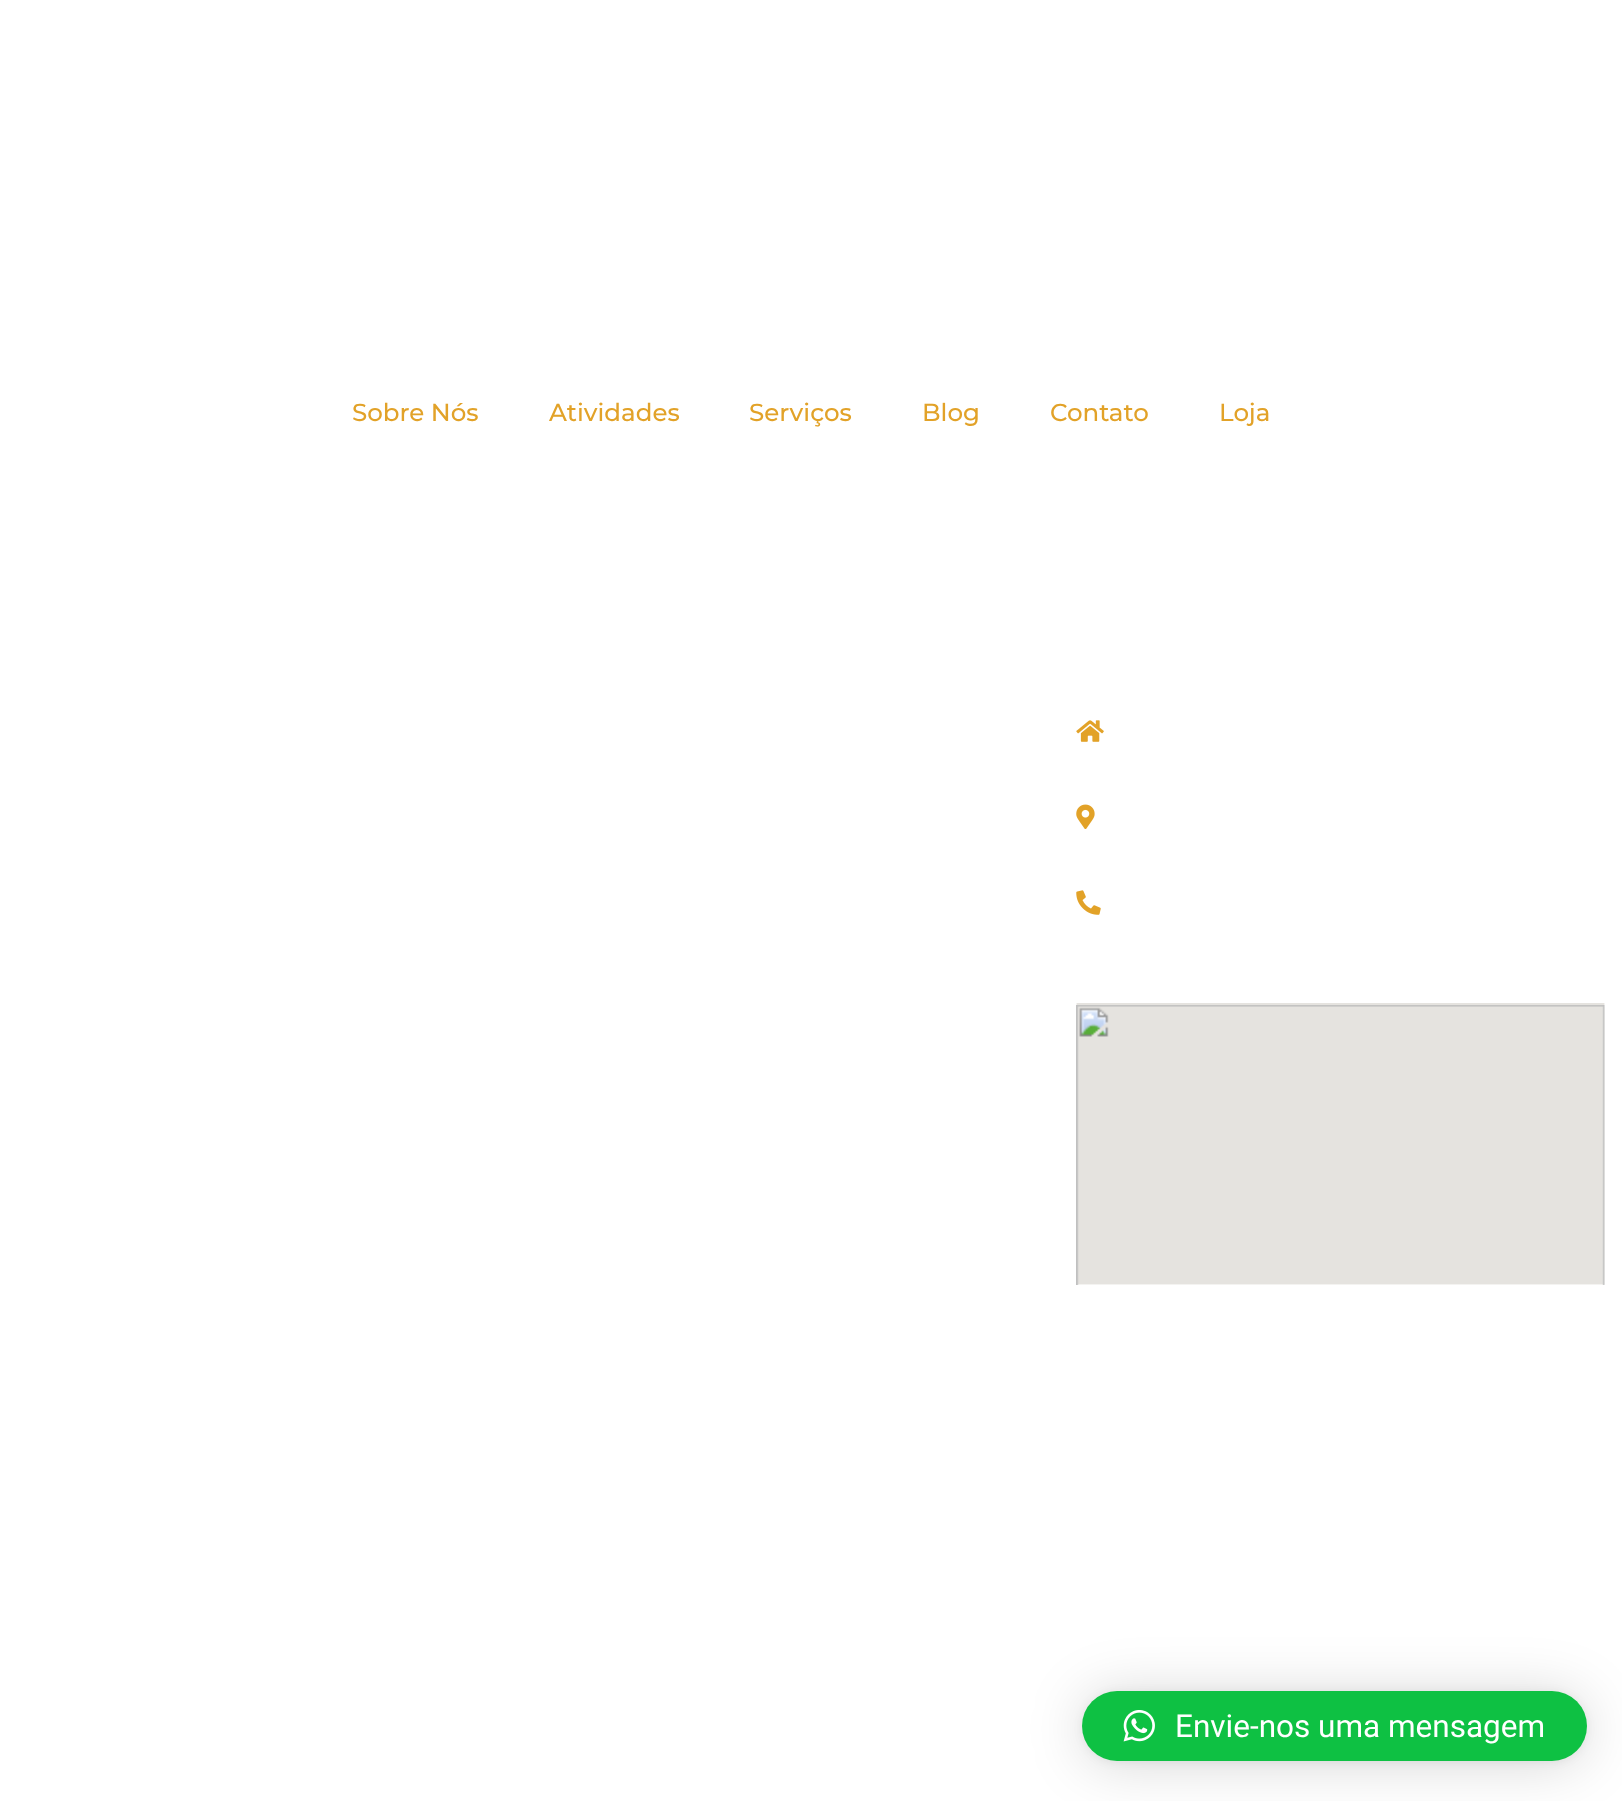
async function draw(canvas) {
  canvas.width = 1622
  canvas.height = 1801
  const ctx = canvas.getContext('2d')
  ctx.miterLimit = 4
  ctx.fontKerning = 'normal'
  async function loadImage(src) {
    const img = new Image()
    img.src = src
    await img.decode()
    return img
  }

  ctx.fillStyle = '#fff'
  ctx.fillRect(0, 0, 1622, 1801)
  ctx.font = '500 24.5px Montserrat'
  ctx.fillStyle = '#e2a228'
  ctx.fillText('Sobre Nós', 352, 421)
  ctx.fillText('Atividades', 549, 421)
  ctx.fillText('Serviços', 749, 421)
  ctx.fillText('Blog', 922, 421)
  ctx.fillText('Contato', 1050, 421)
  ctx.fillText('Loja', 1219, 421)
  ctx.drawImage(await loadImage('image0.png'), 1076, 720, 28, 22)
  ctx.drawImage(await loadImage('image1.png'), 1076, 804, 19, 25)
  ctx.drawImage(await loadImage('image2.png'), 1076, 890, 25, 25)
  ctx.drawImage(await loadImage('image3.png'), 1076, 1003, 529, 282)
  ctx.fillStyle = '#00000029'
  ctx.filter = 'blur(28px)'
  ctx.beginPath()
  ctx.roundRect(1082, 1694, 505, 70, 35)
  ctx.fill()
  ctx.filter = 'none'
  ctx.fillStyle = '#0000000f'
  ctx.filter = 'blur(5px)'
  ctx.beginPath()
  ctx.roundRect(1082, 1692, 505, 70, 35)
  ctx.fill()
  ctx.filter = 'none'
  ctx.fillStyle = '#0ec143'
  ctx.beginPath()
  ctx.roundRect(1082, 1691, 505, 70, 35)
  ctx.fill()
  ctx.drawImage(await loadImage('image4.png'), 1123, 1710, 32, 32)
  ctx.font = '31.5px Roboto'
  ctx.fillStyle = '#fff'
  ctx.fillText('Envie-nos uma mensagem', 1175, 1737)
}

draw(document.querySelector('canvas'))
